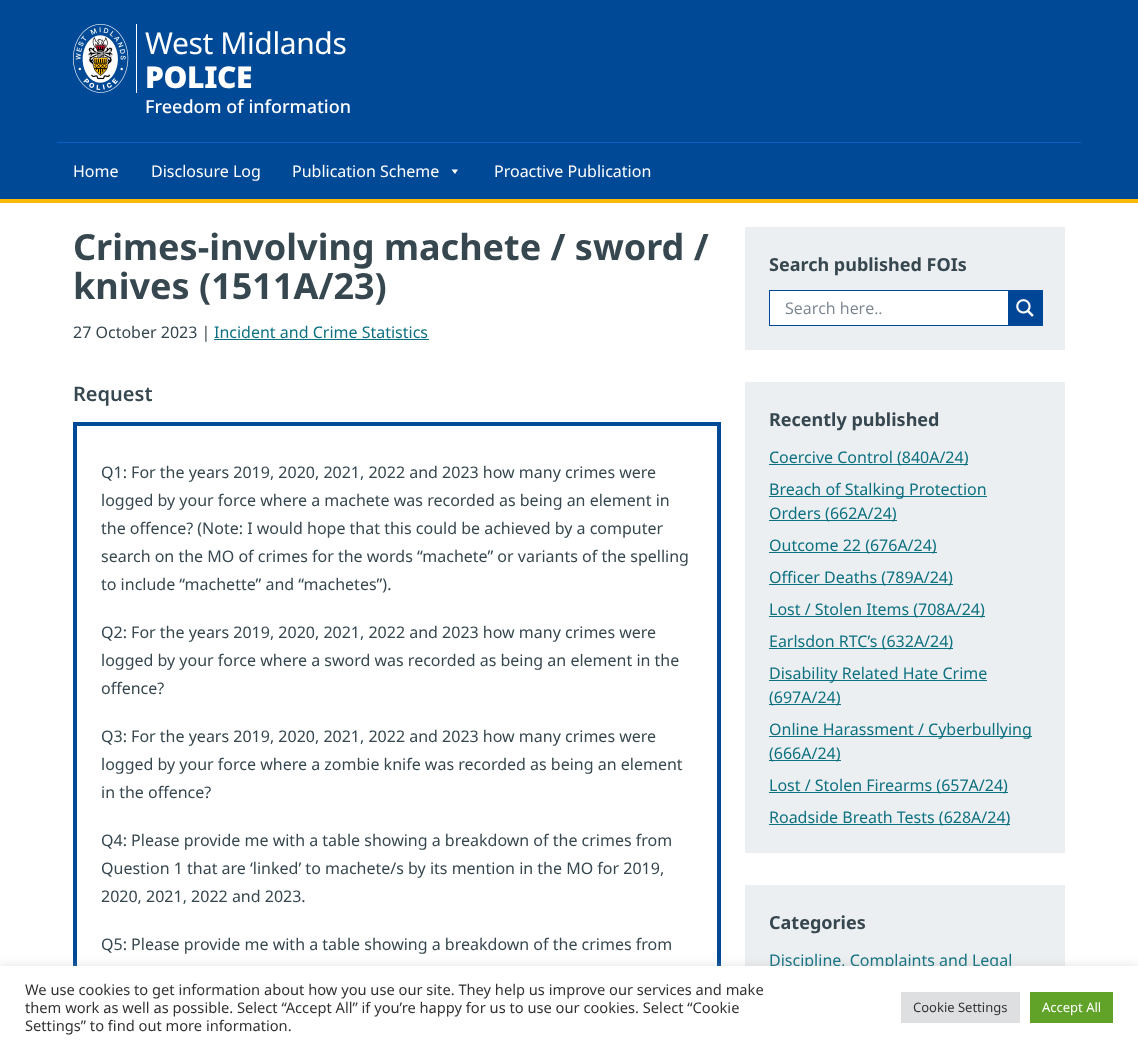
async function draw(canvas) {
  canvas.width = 1138
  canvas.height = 1048
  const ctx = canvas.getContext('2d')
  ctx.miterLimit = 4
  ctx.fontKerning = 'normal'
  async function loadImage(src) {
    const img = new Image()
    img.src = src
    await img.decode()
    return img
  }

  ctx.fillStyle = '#004996'
  ctx.fillRect(0, 0, 1138, 1048)
  ctx.fillStyle = '#fbba07'
  ctx.fillRect(0, 199, 1138, 4)
  ctx.fillStyle = '#fff'
  ctx.fillRect(136, 24, 1, 69)
  ctx.drawImage(await loadImage('image0.png'), 73, 24, 56, 69)
  ctx.letterSpacing = '-0.4px'
  ctx.font = '30px Noto Sans'
  ctx.fillText('West Midlands', 145, 54)
  ctx.font = '900 30px Noto Sans'
  ctx.fillText('POLICE', 145, 88)
  ctx.letterSpacing = '0px'
  ctx.font = '500 18px Noto Sans'
  ctx.fillText('Freedom of information', 145, 113)
  ctx.fillStyle = '#0760c3'
  ctx.fillRect(57, 142, 1024, 1)
  ctx.font = '16px Noto Sans'
  ctx.fillStyle = '#fff'
  ctx.fillText('Home', 73, 177)
  ctx.fillText('Disclosure Log', 151, 177)
  ctx.fillText('Publication Scheme', 292, 177)
  ctx.beginPath()
  ctx.moveTo(458, 169.5)
  ctx.lineTo(455, 174)
  ctx.lineTo(451.5, 169.5)
  ctx.closePath()
  ctx.fill()
  ctx.fillText('Proactive Publication', 494, 177)
  ctx.fillRect(0, 203, 1138, 763)
  ctx.font = 'bold 36px Noto Sans'
  ctx.fillStyle = '#37474f'
  ctx.fillText('Crimes-involving machete / sword /', 73, 260)
  ctx.fillText('knives (1511A/23)', 73, 299)
  ctx.font = '16px Noto Sans'
  ctx.fillText('27 October 2023 |', 73, 338)
  ctx.fillStyle = '#0e7181'
  ctx.fillText('Incident and Crime Statistics', 214, 338)
  ctx.fillRect(214, 339, 215, 1)
  ctx.font = '600 20px Noto Sans'
  ctx.fillStyle = '#37474f'
  ctx.fillText('Request', 73, 401)
  ctx.strokeStyle = '#004996'
  ctx.lineWidth = 4
  ctx.strokeRect(75, 424, 644, 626)
  ctx.font = '16px Noto Sans'
  ctx.fillText('Q1: For the years 2019, 2020, 2021, 2022 and 2023 how many crimes were', 101, 478)
  ctx.fillText('logged by your force where a machete was recorded as being an element in', 101, 506)
  ctx.fillText('the offence? (Note: I would hope that this could be achieved by a computer', 101, 534)
  ctx.fillText('search on the MO of crimes for the words “machete” or variants of the spelling', 101, 562)
  ctx.fillText('to include “machette” and “machetes”).', 101, 590)
  ctx.fillText('Q2: For the years 2019, 2020, 2021, 2022 and 2023 how many crimes were', 101, 638)
  ctx.fillText('logged by your force where a sword was recorded as being an element in the', 101, 666)
  ctx.fillText('offence?', 101, 694)
  ctx.fillText('Q3: For the years 2019, 2020, 2021, 2022 and 2023 how many crimes were', 101, 742)
  ctx.fillText('logged by your force where a zombie knife was recorded as being an element', 101, 770)
  ctx.fillText('in the offence?', 101, 798)
  ctx.fillText('Q4: Please provide me with a table showing a breakdown of the crimes from', 101, 846)
  ctx.fillText('Question 1 that are ‘linked’ to machete/s by its mention in the MO for 2019,', 101, 874)
  ctx.fillText('2020, 2021, 2022 and 2023.', 101, 902)
  ctx.fillText('Q5: Please provide me with a table showing a breakdown of the crimes from', 101, 950)
  ctx.fillStyle = '#eceff1'
  ctx.fillRect(745, 227, 320, 123)
  ctx.font = 'bold 18px Noto Sans'
  ctx.fillStyle = '#37474f'
  ctx.fillText('Search published FOIs', 769, 271)
  ctx.fillStyle = '#fff'
  ctx.fillRect(770, 291, 238, 34)
  ctx.strokeStyle = '#004696'
  ctx.lineWidth = 1
  ctx.strokeRect(769.5, 290.5, 273, 35)
  ctx.font = '16px Open Sans'
  ctx.fillStyle = '#798490'
  ctx.fillText('Search here..', 785, 314)
  ctx.fillStyle = '#004696'
  ctx.fillRect(1008, 291, 34, 34)
  ctx.drawImage(await loadImage('image1.png'), 1016, 299, 18, 18)
  ctx.fillStyle = '#eceff1'
  ctx.fillRect(745, 382, 320, 471)
  ctx.font = 'bold 18px Noto Sans'
  ctx.fillStyle = '#37474f'
  ctx.fillText('Recently published', 769, 426)
  ctx.fillStyle = '#0e7181'
  ctx.fillRect(769, 464, 199, 1)
  ctx.font = '16px Noto Sans'
  ctx.fillText('Coercive Control (840A/24)', 769, 463)
  ctx.fillRect(769, 496, 218, 1)
  ctx.fillText('Breach of Stalking Protection', 769, 495)
  ctx.fillRect(769, 520, 128, 1)
  ctx.fillText('Orders (662A/24)', 769, 519)
  ctx.fillRect(769, 552, 168, 1)
  ctx.fillText('Outcome 22 (676A/24)', 769, 551)
  ctx.fillRect(769, 584, 184, 1)
  ctx.fillText('Officer Deaths (789A/24)', 769, 583)
  ctx.fillRect(769, 616, 216, 1)
  ctx.fillText('Lost / Stolen Items (708A/24)', 769, 615)
  ctx.fillRect(769, 648, 184, 1)
  ctx.fillText('Earlsdon RTC’s (632A/24)', 769, 647)
  ctx.fillRect(769, 680, 218, 1)
  ctx.fillText('Disability Related Hate Crime', 769, 679)
  ctx.fillRect(769, 704, 72, 1)
  ctx.fillText('(697A/24)', 769, 703)
  ctx.fillRect(769, 736, 263, 1)
  ctx.fillText('Online Harassment / Cyberbullying', 769, 735)
  ctx.fillRect(769, 760, 72, 1)
  ctx.fillText('(666A/24)', 769, 759)
  ctx.fillRect(769, 792, 239, 1)
  ctx.fillText('Lost / Stolen Firearms (657A/24)', 769, 791)
  ctx.fillRect(769, 824, 241, 1)
  ctx.fillText('Roadside Breath Tests (628A/24)', 769, 823)
  ctx.fillStyle = '#eceff1'
  ctx.fillRect(745, 885, 320, 81)
  ctx.font = 'bold 18px Noto Sans'
  ctx.fillStyle = '#37474f'
  ctx.fillText('Categories', 769, 929)
  ctx.font = '16px Noto Sans'
  ctx.fillStyle = '#0e7181'
  ctx.fillText('Discipline, Complaints and Legal', 769, 966)
  ctx.fillStyle = '#acabab4d'
  ctx.filter = 'blur(5px)'
  ctx.beginPath()
  ctx.rect(0, 965, 1138, 82)
  ctx.fill()
  ctx.filter = 'none'
  ctx.fillStyle = '#fff'
  ctx.fillRect(0, 966, 1138, 82)
  ctx.font = '14.67px Noto Sans'
  ctx.fillStyle = '#333'
  ctx.fillText('We use cookies to get information about how you use our site. They help us improve our services and make', 25, 995)
  ctx.fillText('them work as well as possible. Select “Accept All” if you’re happy for us to use our cookies. Select “Cookie', 25, 1013)
  ctx.fillText('Settings” to find out more information.', 25, 1031)
  ctx.fillStyle = '#dedfe0'
  ctx.fillRect(901, 992, 119, 31)
  ctx.font = '13px Noto Sans'
  ctx.fillStyle = '#333'
  ctx.fillText('Cookie Settings', 913, 1012)
  ctx.fillStyle = '#61a229'
  ctx.fillRect(1030, 992, 83, 31)
  ctx.fillStyle = '#fff'
  ctx.fillText('Accept All', 1042, 1012)
}

draw(document.querySelector('canvas'))
